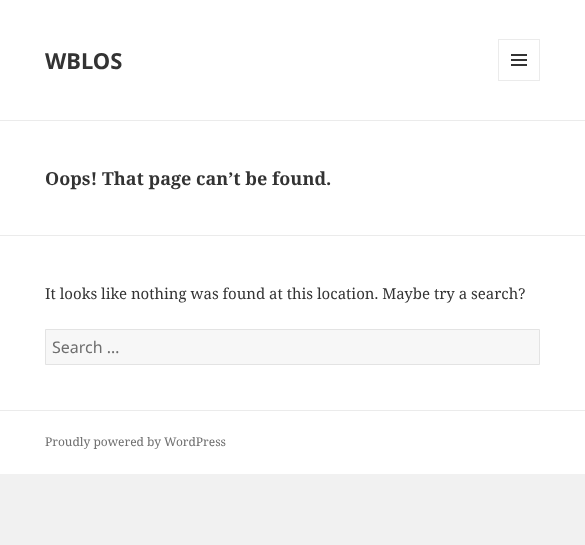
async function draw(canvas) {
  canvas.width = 585
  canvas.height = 545
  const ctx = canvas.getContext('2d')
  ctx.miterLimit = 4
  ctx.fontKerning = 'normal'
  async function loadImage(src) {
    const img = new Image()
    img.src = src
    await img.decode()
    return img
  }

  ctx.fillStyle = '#f1f1f1'
  ctx.fillRect(0, 0, 585, 545)
  ctx.fillStyle = '#fff'
  ctx.fillRect(0, 0, 585, 120)
  ctx.fillStyle = '#ebebeb'
  ctx.fillRect(0, 120, 585, 1)
  ctx.font = 'bold 22px Noto Sans'
  ctx.fillStyle = '#333'
  ctx.fillText('WBLOS', 45, 69)
  ctx.strokeStyle = '#ebebeb'
  ctx.strokeRect(498.5, 39.5, 41, 41)
  ctx.drawImage(await loadImage('image0.png'), 511, 54, 16, 12)
  ctx.fillStyle = '#fff'
  ctx.fillRect(0, 121, 585, 114)
  ctx.fillStyle = '#ebebeb'
  ctx.fillRect(0, 235, 585, 1)
  ctx.font = 'bold 18px Noto Serif'
  ctx.fillStyle = '#333'
  ctx.fillText('Oops! That page can’t be found.', 45, 185)
  ctx.fillStyle = '#fff'
  ctx.fillRect(0, 236, 585, 174)
  ctx.font = '15px Noto Serif'
  ctx.fillStyle = '#333'
  ctx.fillText('It looks like nothing was found at this location. Maybe try a search?', 45, 299)
  ctx.fillStyle = '#f7f7f7'
  ctx.beginPath()
  ctx.rect(45.5, 329.5, 494, 35)
  ctx.fill()
  ctx.strokeStyle = '#e3e3e3'
  ctx.stroke()
  ctx.font = '16px Noto Sans'
  ctx.fillStyle = '#6e6e6e'
  ctx.fillText('Search …', 52, 353)
  ctx.fillStyle = '#fff'
  ctx.fillRect(0, 411, 585, 63)
  ctx.fillStyle = '#ebebeb'
  ctx.fillRect(0, 410, 585, 1)
  ctx.font = '12px Noto Serif'
  ctx.fillStyle = '#6e6e6e'
  ctx.fillText('Proudly powered by WordPress', 45, 446)
}

draw(document.querySelector('canvas'))
